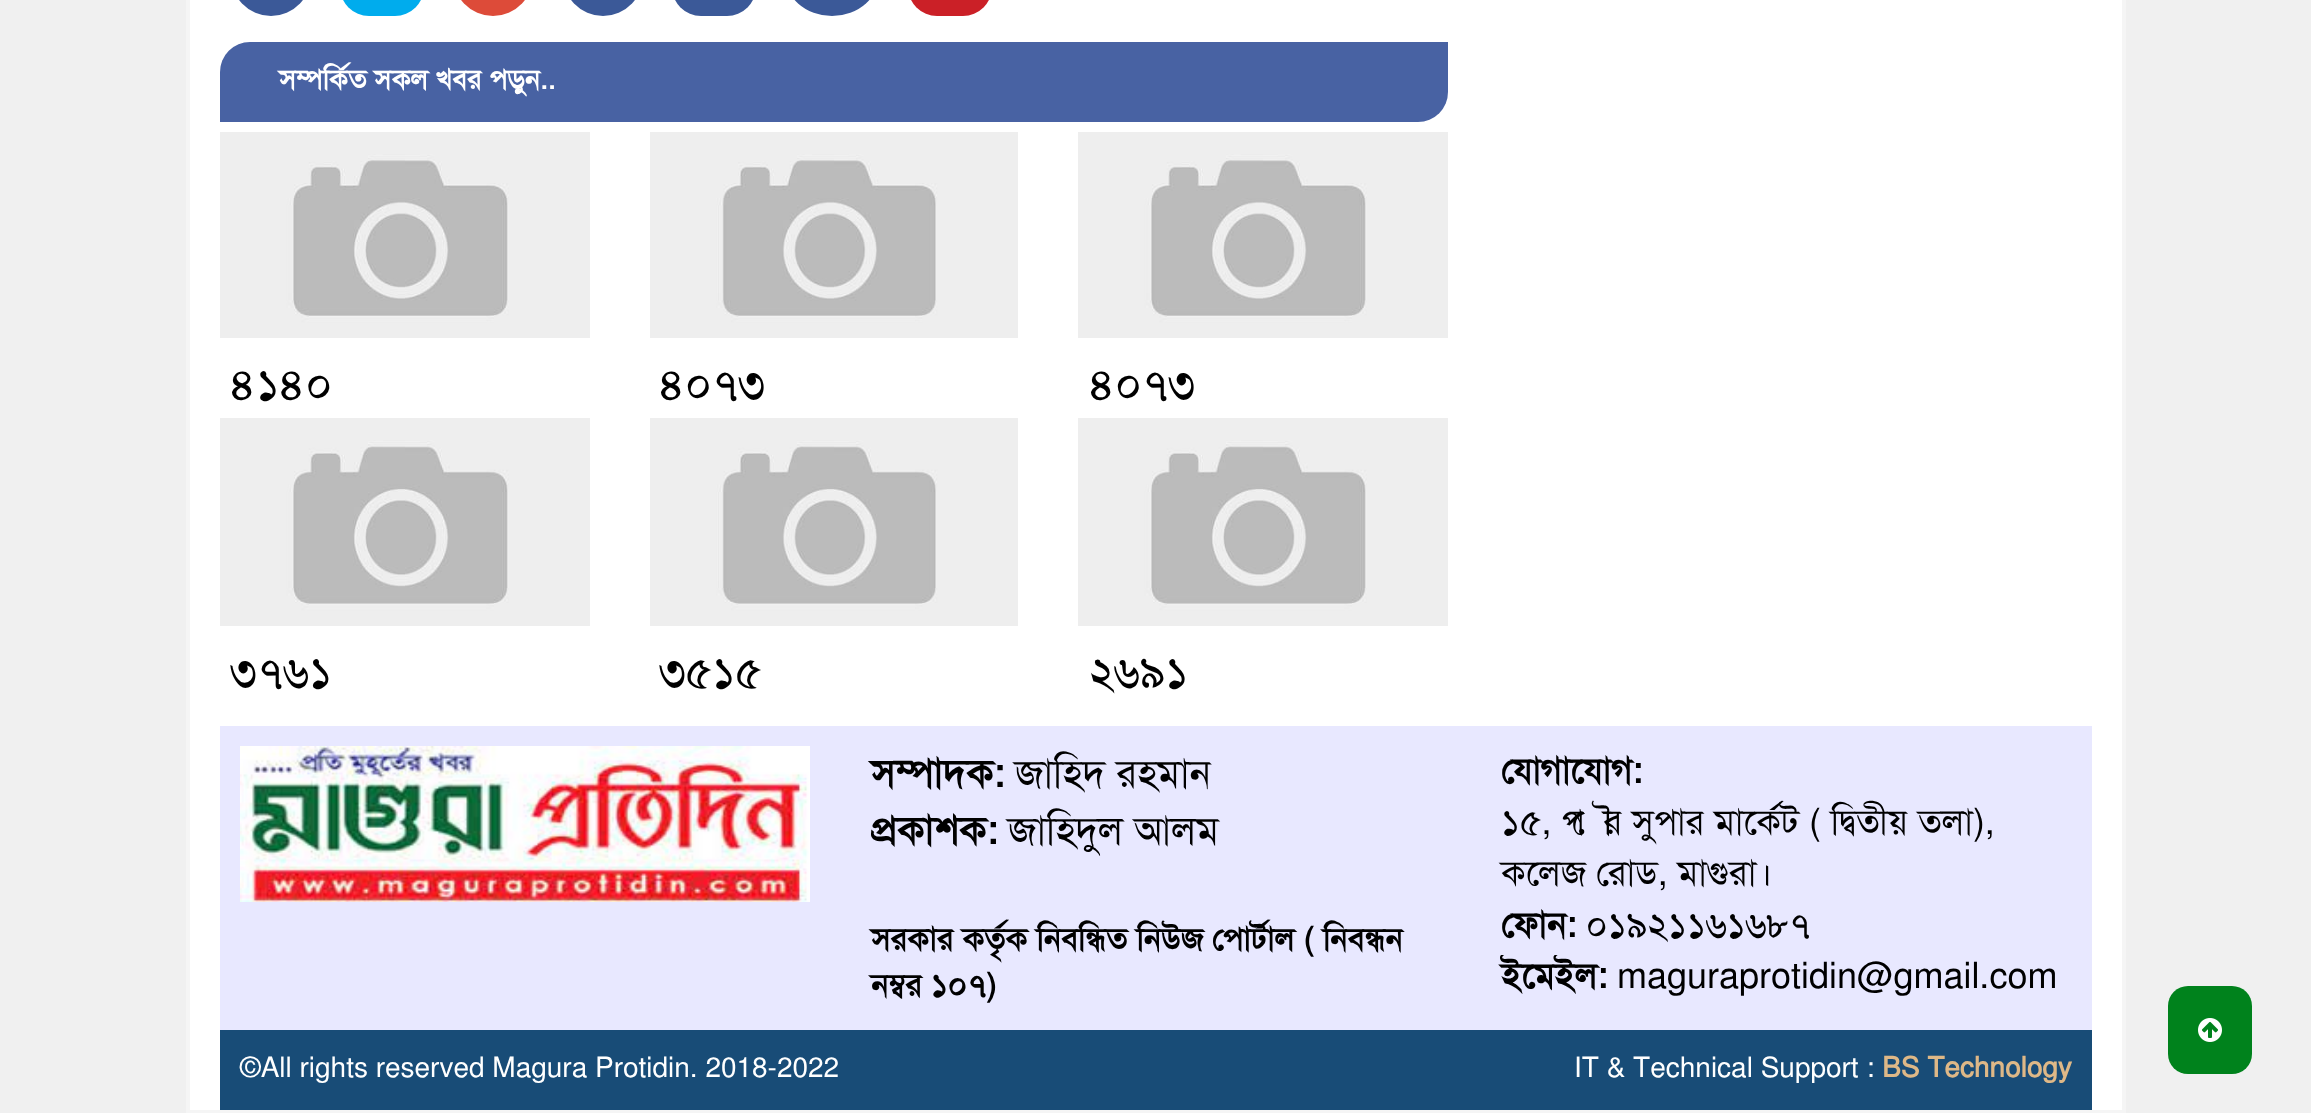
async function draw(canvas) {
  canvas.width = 2311
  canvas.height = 1113
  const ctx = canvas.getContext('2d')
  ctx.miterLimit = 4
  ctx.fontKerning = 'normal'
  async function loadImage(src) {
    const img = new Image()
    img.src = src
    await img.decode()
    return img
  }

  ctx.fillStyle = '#f0f0f0'
  ctx.fillRect(0, 0, 2311, 1113)
  ctx.fillStyle = '#fff'
  ctx.beginPath()
  ctx.rect(188, -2, 1936, 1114)
  ctx.fill()
  ctx.strokeStyle = '#f5f5f5'
  ctx.lineWidth = 4
  ctx.stroke()
  ctx.fillStyle = '#3b5998'
  ctx.beginPath()
  ctx.ellipse(271, -27, 41, 43, 0, 0, 2 * Math.PI)
  ctx.fill()
  ctx.fillStyle = '#00aced'
  ctx.beginPath()
  ctx.roundRect(340, -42, 84, 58, 42)
  ctx.fill()
  ctx.fillStyle = '#dd4b39'
  ctx.beginPath()
  ctx.ellipse(493, -27, 41, 43, 0, 0, 2 * Math.PI)
  ctx.fill()
  ctx.fillStyle = '#3b5998'
  ctx.beginPath()
  ctx.ellipse(603, -27, 41, 43, 0, 0, 2 * Math.PI)
  ctx.fill()
  ctx.beginPath()
  ctx.roundRect(672, -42, 84, 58, 42)
  ctx.fill()
  ctx.beginPath()
  ctx.ellipse(832, -27, 48, 43, 0, 0, 2 * Math.PI)
  ctx.fill()
  ctx.fillStyle = '#cb2027'
  ctx.beginPath()
  ctx.roundRect(908, -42, 84, 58, 42)
  ctx.fill()
  ctx.fillStyle = '#4862a3'
  ctx.beginPath()
  ctx.roundRect(220, 42, 1228, 80, [30, 0, 30, 0])
  ctx.fill()
  ctx.font = 'bold 28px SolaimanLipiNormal'
  ctx.fillStyle = '#fff'
  ctx.fillText('সম্পর্কিত সকল খবর পড়ুন..', 279, 89)
  ctx.drawImage(await loadImage('image0.png'), 220, 132, 370, 206)
  ctx.font = '44px SolaimanLipiNormal'
  ctx.fillStyle = '#000'
  ctx.fillText('৪১৪০', 230, 399)
  ctx.drawImage(await loadImage('image1.png'), 650, 132, 368, 206)
  ctx.fillText('৪০৭৩', 659, 399)
  ctx.drawImage(await loadImage('image0.png'), 1078, 132, 370, 206)
  ctx.fillText('৪০৭৩', 1089, 399)
  ctx.drawImage(await loadImage('image2.png'), 220, 418, 370, 208)
  ctx.fillText('৩৭৬১', 230, 687)
  ctx.drawImage(await loadImage('image3.png'), 650, 418, 368, 208)
  ctx.fillText('৩৫১৫', 659, 687)
  ctx.drawImage(await loadImage('image2.png'), 1078, 418, 370, 208)
  ctx.fillText('২৬৯১', 1089, 687)
  ctx.fillStyle = '#e8e8ff'
  ctx.fillRect(220, 726, 1872, 304)
  ctx.drawImage(await loadImage('image4.png'), 240, 746, 570, 156)
  ctx.font = 'bold 40px SolaimanLipiNormal'
  ctx.fillStyle = '#000'
  ctx.fillText('সম্পাদক:', 871, 787)
  ctx.font = '40px SolaimanLipiNormal'
  ctx.fillText('জাহিদ রহমান', 1015, 787)
  ctx.font = 'bold 40px SolaimanLipiNormal'
  ctx.fillText('প্রকাশক:', 871, 844)
  ctx.font = '40px SolaimanLipiNormal'
  ctx.fillText('জাহিদুল আলম', 1008, 844)
  ctx.font = 'bold 32px SolaimanLipiNormal'
  ctx.fillText('সরকার কর্তৃক নিবন্ধিত নিউজ পোর্টাল ( নিবন্ধন', 871, 950)
  ctx.fillText('নম্বর ১০৭)', 871, 996)
  ctx.font = 'bold 36px SolaimanLipiNormal'
  ctx.fillText('যোগাযোগ:', 1501, 783)
  ctx.font = '36px SolaimanLipiNormal'
  ctx.fillText('১৫, পৌর সুপার মার্কেট ( দ্বিতীয় তলা),', 1501, 834)
  ctx.fillText('কলেজ রোড, মাগুরা।', 1501, 885)
  ctx.font = 'bold 36px SolaimanLipiNormal'
  ctx.fillText('ফোন:', 1501, 937)
  ctx.font = '36px SolaimanLipiNormal'
  ctx.fillText('০১৯২১১৬১৬৮৭', 1586, 937)
  ctx.font = 'bold 36px SolaimanLipiNormal'
  ctx.fillText('ইমেইল:', 1501, 988)
  ctx.font = '36px SolaimanLipiNormal'
  ctx.fillText('maguraprotidin@gmail.com', 1617, 988)
  ctx.fillStyle = '#184c77'
  ctx.fillRect(220, 1030, 1872, 80)
  ctx.font = '28px SolaimanLipiNormal'
  ctx.fillStyle = '#fff'
  ctx.fillText('©All rights reserved Magura Protidin. 2018-2022', 240, 1077)
  ctx.fillText('IT & Technical Support :', 1574, 1077)
  ctx.font = 'bold 28px SolaimanLipiNormal'
  ctx.fillStyle = '#deb887'
  ctx.fillText('BS Technology', 1882, 1077)
  ctx.fillStyle = '#00821c'
  ctx.beginPath()
  ctx.roundRect(2168, 986, 84, 88, 20)
  ctx.fill()
  ctx.drawImage(await loadImage('image5.png'), 2198, 1018, 24, 24)
}

draw(document.querySelector('canvas'))
